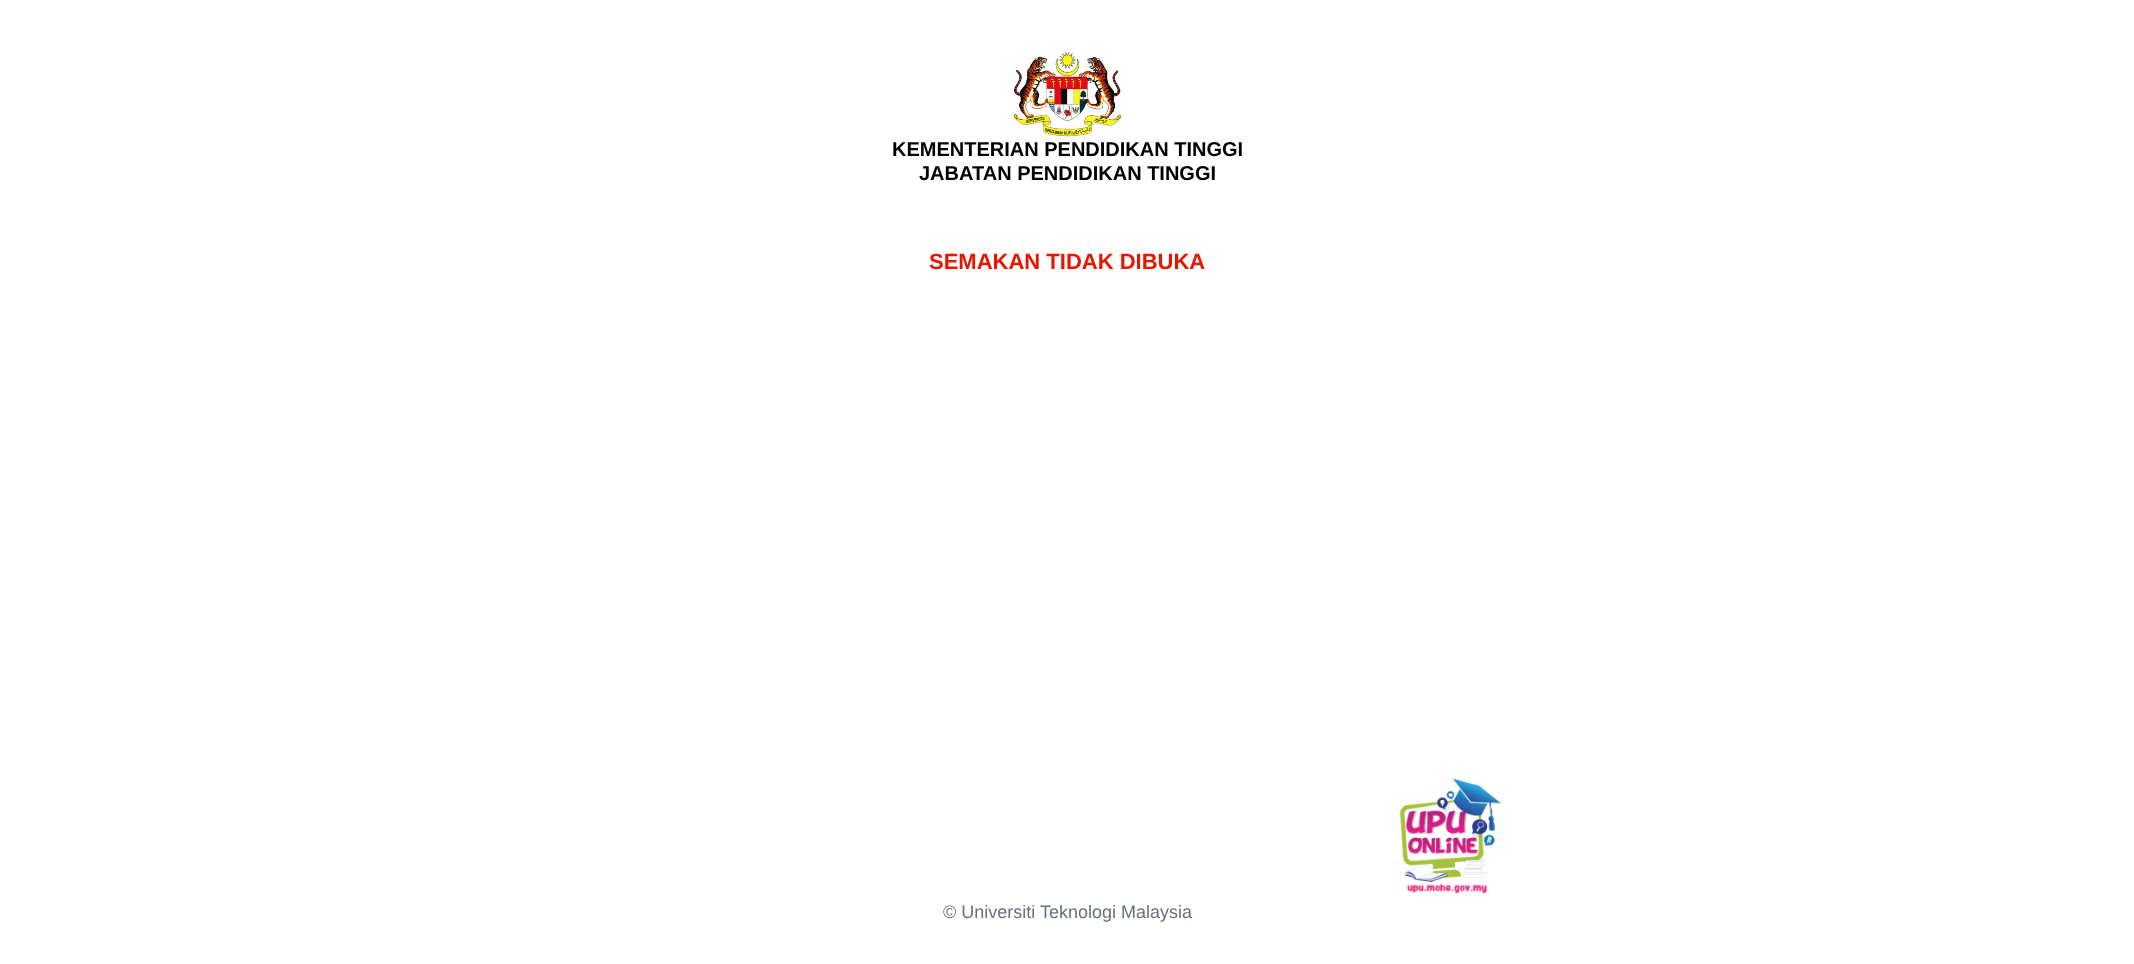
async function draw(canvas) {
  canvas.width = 2134
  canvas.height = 964
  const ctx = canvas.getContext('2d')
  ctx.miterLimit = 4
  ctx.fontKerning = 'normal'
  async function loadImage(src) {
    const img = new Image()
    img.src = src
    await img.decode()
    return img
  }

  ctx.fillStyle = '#fff'
  ctx.fillRect(0, 0, 2134, 964)
  ctx.drawImage(await loadImage('image0.png'), 1013, 51, 109, 86)
  ctx.font = 'bold 20px Liberation Sans'
  ctx.fillStyle = '#000'
  ctx.fillText('KEMENTERIAN PENDIDIKAN TINGGI', 892, 156)
  ctx.fillText('JABATAN PENDIDIKAN TINGGI', 919, 180)
  ctx.font = 'bold 22px Liberation Sans'
  ctx.fillStyle = '#e81500'
  ctx.fillText('SEMAKAN TIDAK DIBUKA', 929, 269)
  ctx.drawImage(await loadImage('image1.png'), 1399, 778, 102, 117)
  ctx.font = '18px Liberation Sans'
  ctx.fillStyle = '#69707a'
  ctx.fillText('© Universiti Teknologi Malaysia', 943, 918)
}

draw(document.querySelector('canvas'))
